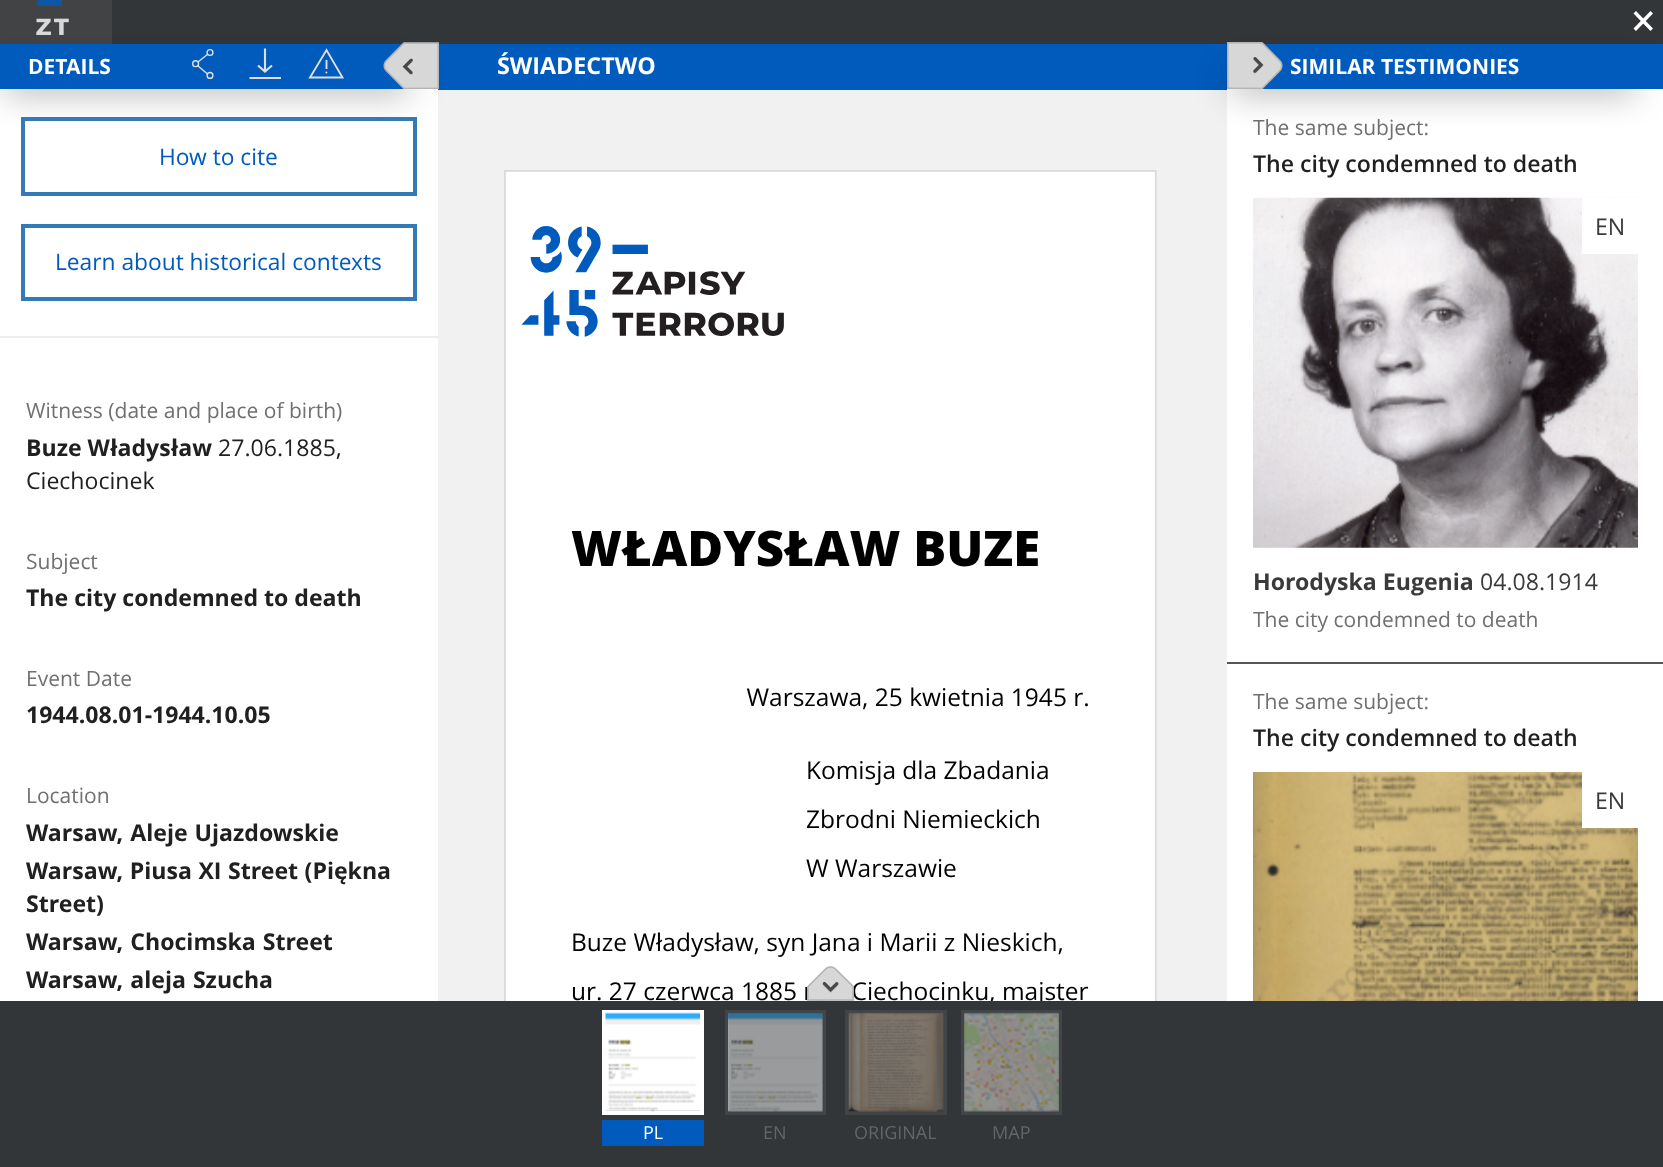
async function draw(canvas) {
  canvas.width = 1663
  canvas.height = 1167
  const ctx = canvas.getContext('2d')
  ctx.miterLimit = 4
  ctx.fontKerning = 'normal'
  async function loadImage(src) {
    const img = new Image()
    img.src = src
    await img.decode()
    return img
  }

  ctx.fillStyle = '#323639'
  ctx.fillRect(0, 0, 1663, 1167)
  ctx.fillStyle = '#424345'
  ctx.fillRect(0, 0, 112, 44)
  ctx.drawImage(await loadImage('image0.png'), 36, 0, 33, 35)
  ctx.fillStyle = '#fff'
  ctx.beginPath()
  ctx.moveTo(1633.5, 28.5)
  ctx.lineTo(1650.5, 11)
  ctx.lineTo(1653, 13.5)
  ctx.lineTo(1636, 31)
  ctx.closePath()
  ctx.fill()
  ctx.beginPath()
  ctx.moveTo(1636, 11)
  ctx.lineTo(1653, 28.5)
  ctx.lineTo(1650.5, 31)
  ctx.lineTo(1633.5, 13.5)
  ctx.closePath()
  ctx.fill()
  ctx.fillRect(0, 89, 438, 912)
  ctx.drawImage(await loadImage('image2.png'), 438, 44, 789, 957)
  ctx.fillStyle = '#000000a6'
  ctx.filter = 'blur(17.5px)'
  ctx.beginPath()
  ctx.rect(5, 77, 403, 11)
  ctx.fill()
  ctx.filter = 'none'
  ctx.fillStyle = '#005bbc'
  ctx.fillRect(0, 44, 404, 45)
  ctx.font = 'bold 21px Open Sans'
  ctx.fillStyle = '#fff'
  ctx.fillText('DETAILS', 28, 74)
  ctx.beginPath()
  ctx.arc(195.6, 63.7, 2.9, 0, 2 * Math.PI)
  ctx.strokeStyle = '#dfdfdf'
  ctx.lineWidth = 1.4
  ctx.stroke()
  ctx.beginPath()
  ctx.arc(210, 52.5, 2.9, 0, 2 * Math.PI)
  ctx.stroke()
  ctx.beginPath()
  ctx.arc(210, 75.4, 2.9, 0, 2 * Math.PI)
  ctx.stroke()
  ctx.beginPath()
  ctx.moveTo(197.5, 65.5)
  ctx.lineTo(207.5, 74)
  ctx.moveTo(198, 62)
  ctx.lineTo(208, 54)
  ctx.stroke()
  ctx.beginPath()
  ctx.moveTo(249.5, 78)
  ctx.lineTo(281, 78)
  ctx.moveTo(265, 48.5)
  ctx.lineTo(265, 71.5)
  ctx.moveTo(265, 71.5)
  ctx.lineTo(258, 65.5)
  ctx.lineTo(265, 71.5)
  ctx.lineTo(272, 65.5)
  ctx.lineWidth = 2.1
  ctx.stroke()
  ctx.beginPath()
  ctx.moveTo(326.5, 77.5)
  ctx.lineTo(310, 77.5)
  ctx.lineTo(326.5, 50)
  ctx.lineTo(342.5, 77.5)
  ctx.closePath()
  ctx.moveTo(326.5, 60)
  ctx.lineTo(326.5, 69)
  ctx.lineWidth = 1.9
  ctx.stroke()
  ctx.fillStyle = '#dfdfdf'
  ctx.beginPath()
  ctx.arc(326.4, 72.4, 1, 0, 2 * Math.PI)
  ctx.fill()
  ctx.drawImage(await loadImage('image1.png'), 383, 42, 56, 47)
  ctx.strokeStyle = '#337ab7'
  ctx.lineWidth = 4
  ctx.strokeRect(23, 119, 392, 75)
  ctx.font = '22.75px Open Sans'
  ctx.fillStyle = '#005bbc'
  ctx.fillText('How to cite', 159, 165)
  ctx.strokeRect(23, 226, 392, 73)
  ctx.fillText('Learn about historical contexts', 55, 270)
  ctx.fillStyle = '#eee'
  ctx.fillRect(0, 336, 438, 2)
  ctx.font = '21px Open Sans'
  ctx.fillStyle = '#707070'
  ctx.fillText('Witness (date and place of birth)', 26, 418)
  ctx.font = 'bold 23.1px Open Sans'
  ctx.fillStyle = '#202020'
  ctx.fillText('Buze Władysław', 26, 456)
  ctx.font = '23.1px Open Sans'
  ctx.fillText('27.06.1885,', 218, 456)
  ctx.fillText('Ciechocinek', 26, 489)
  ctx.font = '21px Open Sans'
  ctx.fillStyle = '#707070'
  ctx.fillText('Subject', 26, 569)
  ctx.font = 'bold 23.1px Open Sans'
  ctx.fillStyle = '#202020'
  ctx.fillText('The city condemned to death', 26, 606)
  ctx.font = '21px Open Sans'
  ctx.fillStyle = '#707070'
  ctx.fillText('Event Date', 26, 686)
  ctx.font = 'bold 23.1px Open Sans'
  ctx.fillStyle = '#202020'
  ctx.fillText('1944.08.01-1944.10.05', 26, 723)
  ctx.font = '21px Open Sans'
  ctx.fillStyle = '#707070'
  ctx.fillText('Location', 26, 803)
  ctx.wordSpacing = '1px'
  ctx.font = 'bold 23.1px Open Sans'
  ctx.fillStyle = '#202020'
  ctx.fillText('Warsaw, Aleje Ujazdowskie', 26, 841)
  ctx.wordSpacing = '0.5px'
  ctx.fillText('Warsaw, Piusa XI Street (Piękna', 26, 879)
  ctx.wordSpacing = '0px'
  ctx.fillText('Street)', 26, 912)
  ctx.wordSpacing = '1px'
  ctx.fillText('Warsaw, Chocimska Street', 26, 950)
  ctx.fillText('Warsaw, aleja Szucha', 26, 988)
  ctx.fillStyle = '#fff'
  ctx.fillRect(1227, 89, 436, 912)
  ctx.fillStyle = '#000000a6'
  ctx.filter = 'blur(17.5px)'
  ctx.beginPath()
  ctx.rect(1232, 77, 403, 11)
  ctx.fill()
  ctx.filter = 'none'
  ctx.fillStyle = '#005bbc'
  ctx.fillRect(1262, 44, 401, 45)
  ctx.drawImage(await loadImage('image3.png'), 1227, 42, 56, 47)
  ctx.wordSpacing = '0px'
  ctx.font = 'bold 21px Open Sans'
  ctx.fillStyle = '#fff'
  ctx.fillText('SIMILAR TESTIMONIES', 1290, 74)
  ctx.fillStyle = '#555'
  ctx.fillRect(1227, 662, 436, 2)
  ctx.font = '21px Open Sans'
  ctx.fillStyle = '#707070'
  ctx.fillText('The same subject:', 1253, 135)
  ctx.font = '600 23.1px Open Sans'
  ctx.fillStyle = '#202020'
  ctx.fillText('The city condemned to death', 1253, 172)
  ctx.drawImage(await loadImage('image4.png'), 1253, 197, 385, 351)
  ctx.fillStyle = '#fff'
  ctx.fillRect(1582, 198, 56, 56)
  ctx.font = '23.1px Open Sans'
  ctx.fillStyle = '#3a3a3a'
  ctx.fillText('EN', 1595, 235)
  ctx.font = 'bold 23.1px Open Sans'
  ctx.fillText('Horodyska Eugenia', 1253, 590)
  ctx.font = '23.1px Open Sans'
  ctx.fillText('04.08.1914', 1480, 590)
  ctx.font = '21px Open Sans'
  ctx.fillStyle = '#707070'
  ctx.fillText('The city condemned to death', 1253, 627)
  ctx.fillText('The same subject:', 1253, 709)
  ctx.font = '600 23.1px Open Sans'
  ctx.fillStyle = '#202020'
  ctx.fillText('The city condemned to death', 1253, 746)
  ctx.drawImage(await loadImage('image5.png'), 1253, 772, 385, 229)
  ctx.fillStyle = '#fff'
  ctx.fillRect(1582, 772, 56, 56)
  ctx.font = '23.1px Open Sans'
  ctx.fillStyle = '#3a3a3a'
  ctx.fillText('EN', 1595, 809)
  ctx.drawImage(await loadImage('image6.png'), 807, 966, 47, 35)
  ctx.strokeStyle = '#fff'
  ctx.strokeRect(604, 1012, 98, 101)
  ctx.drawImage(await loadImage('image7.png'), 605, 1012, 95, 100)
  ctx.fillStyle = '#005bbc'
  ctx.fillRect(602, 1120, 102, 26)
  ctx.font = '18px Open Sans'
  ctx.fillStyle = '#fff'
  ctx.fillText('PL', 643, 1139)
  ctx.strokeStyle = '#414548'
  ctx.strokeRect(727, 1012, 97, 101)
  ctx.drawImage(await loadImage('image8.png'), 728, 1012, 95, 100)
  ctx.fillStyle = '#636566'
  ctx.fillText('EN', 763, 1139)
  ctx.strokeRect(847, 1012, 98, 101)
  ctx.drawImage(await loadImage('image9.png'), 848, 1012, 96, 100)
  ctx.fillText('ORIGINAL', 854, 1139)
  ctx.strokeRect(963, 1012, 97, 101)
  ctx.drawImage(await loadImage('image10.png'), 964, 1012, 95, 100)
  ctx.fillText('MAP', 992, 1139)
}

draw(document.querySelector('canvas'))
